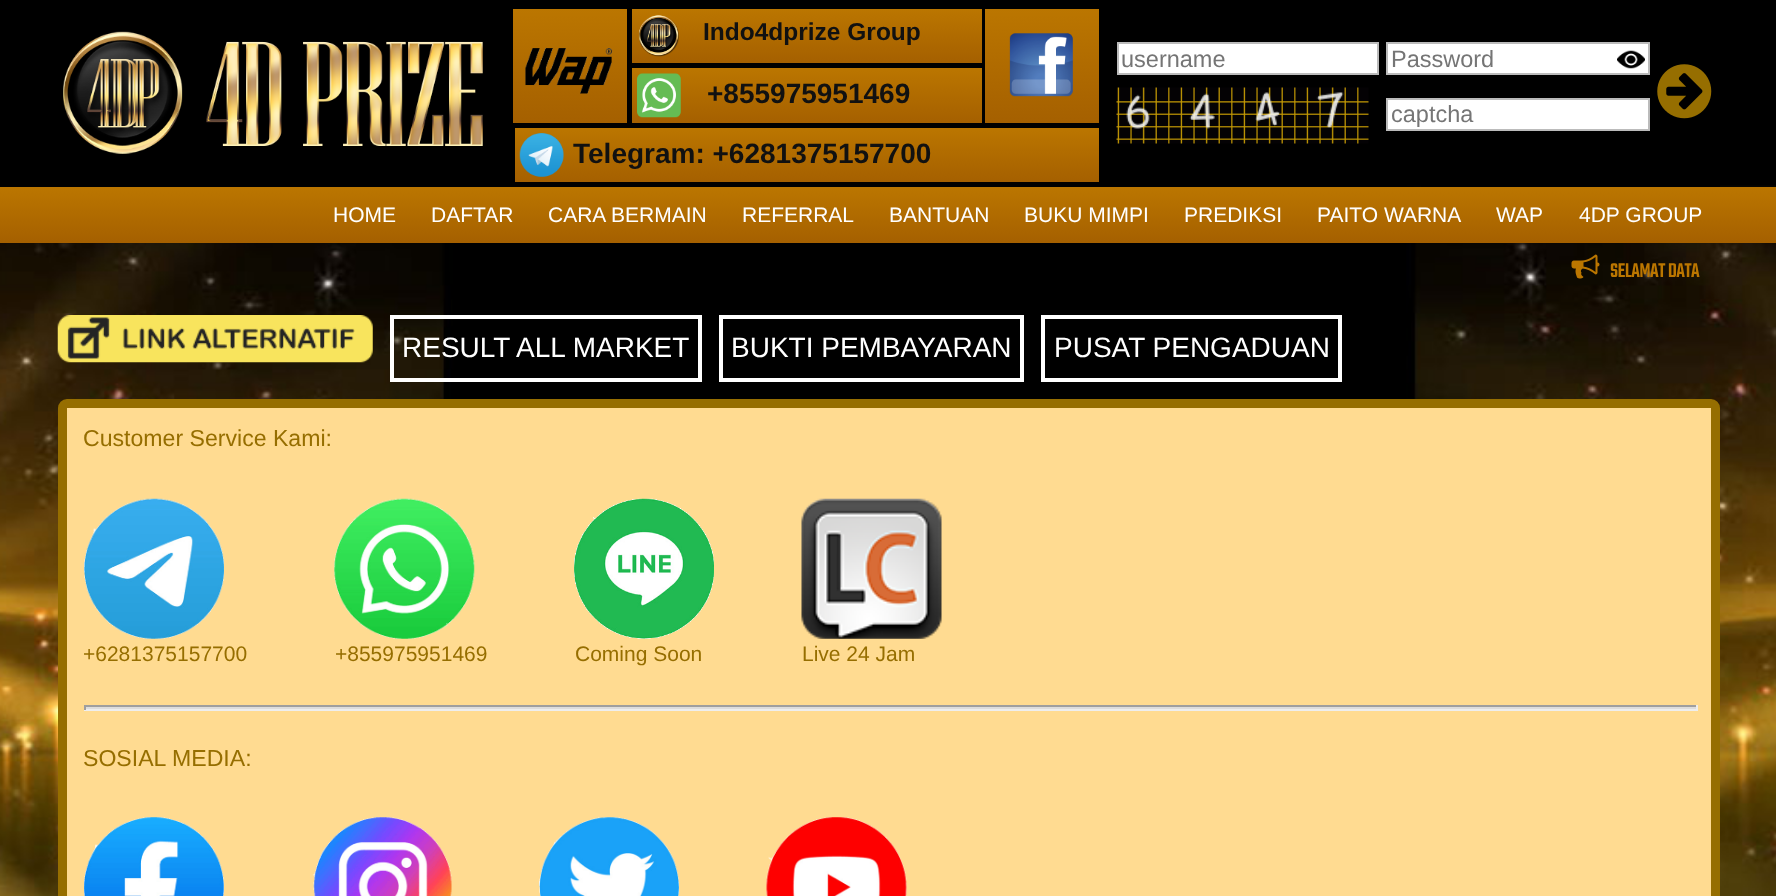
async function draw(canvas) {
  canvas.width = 1776
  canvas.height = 896
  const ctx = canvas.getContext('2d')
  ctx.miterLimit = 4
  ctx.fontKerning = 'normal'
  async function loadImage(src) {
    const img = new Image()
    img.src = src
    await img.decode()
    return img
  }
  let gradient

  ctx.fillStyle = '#000'
  ctx.fillRect(0, 0, 1776, 896)
  ctx.drawImage(await loadImage('image0.png'), 0, 185, 1776, 711)
  ctx.fillRect(1421, 185, 299, 2)
  gradient = ctx.createLinearGradient(570, 9, 570, 123)
  gradient.addColorStop(0, '#bb7600')
  gradient.addColorStop(1, '#a56000')
  ctx.fillStyle = gradient
  ctx.fillRect(513, 9, 114, 114)
  ctx.drawImage(await loadImage('image1.png'), 525, 48, 88, 46)
  gradient = ctx.createLinearGradient(807, 9, 807, 63)
  gradient.addColorStop(0, '#bb7600')
  gradient.addColorStop(1, '#a56000')
  ctx.fillStyle = gradient
  ctx.fillRect(632, 9, 350, 54)
  ctx.drawImage(await loadImage('image2.png'), 638, 15, 41, 42)
  ctx.font = 'bold 24.5px Liberation Sans'
  ctx.fillStyle = '#111'
  ctx.fillText('Indo4dprize Group', 703, 40)
  gradient = ctx.createLinearGradient(1042, 9, 1042, 123)
  gradient.addColorStop(0, '#bb7600')
  gradient.addColorStop(1, '#a56000')
  ctx.fillStyle = gradient
  ctx.fillRect(985, 9, 114, 114)
  ctx.drawImage(await loadImage('image3.png'), 1009, 33, 64, 64)
  gradient = ctx.createLinearGradient(807, 68, 807, 123)
  gradient.addColorStop(0, '#bb7600')
  gradient.addColorStop(1, '#a56000')
  ctx.fillStyle = gradient
  ctx.fillRect(632, 68, 350, 55)
  ctx.drawImage(await loadImage('image4.png'), 637, 73, 44, 45)
  ctx.font = 'bold 28px Liberation Sans'
  ctx.fillStyle = '#111'
  ctx.fillText('+855975951469', 707, 103)
  ctx.drawImage(await loadImage('image5.png'), 63, 31, 420, 123)
  ctx.fillStyle = '#fff'
  ctx.beginPath()
  ctx.rect(1118, 43, 260, 31)
  ctx.fill()
  ctx.strokeStyle = '#bbb'
  ctx.lineWidth = 2
  ctx.stroke()
  ctx.font = '23.5px Liberation Sans'
  ctx.fillStyle = '#757575'
  ctx.fillText('username', 1121, 67)
  ctx.fillStyle = '#fff'
  ctx.beginPath()
  ctx.rect(1387, 43, 262, 31)
  ctx.fill()
  ctx.stroke()
  ctx.fillStyle = '#757575'
  ctx.fillText('Password', 1391, 67)
  ctx.drawImage(await loadImage('image6.png'), 1617, 50, 28, 19)
  ctx.drawImage(await loadImage('image7.png'), 1657, 64, 55, 55)
  ctx.drawImage(await loadImage('image8.png'), 1116, 87, 253, 57)
  ctx.fillStyle = '#fff'
  ctx.beginPath()
  ctx.rect(1387, 99, 262, 31)
  ctx.fill()
  ctx.stroke()
  ctx.fillStyle = '#757575'
  ctx.fillText('captcha', 1391, 122)
  gradient = ctx.createLinearGradient(807, 128, 807, 182)
  gradient.addColorStop(0, '#bb7600')
  gradient.addColorStop(1, '#a56000')
  ctx.fillStyle = gradient
  ctx.fillRect(515, 128, 584, 54)
  ctx.drawImage(await loadImage('image9.png'), 519, 133, 45, 44)
  ctx.font = 'bold 28px Liberation Sans'
  ctx.fillStyle = '#111'
  ctx.fillText('Telegram: +6281375157700', 573, 163)
  gradient = ctx.createLinearGradient(888, 187, 888, 243)
  gradient.addColorStop(0, '#bb7600')
  gradient.addColorStop(1, '#a56000')
  ctx.fillStyle = gradient
  ctx.fillRect(0, 187, 1776, 56)
  ctx.font = '21px Liberation Sans'
  ctx.fillStyle = '#fff'
  ctx.fillText('HOME', 333, 222)
  ctx.fillText('DAFTAR', 431, 222)
  ctx.fillText('CARA BERMAIN', 548, 222)
  ctx.fillText('REFERRAL', 742, 222)
  ctx.fillText('BANTUAN', 889, 222)
  ctx.fillText('BUKU MIMPI', 1024, 222)
  ctx.fillText('PREDIKSI', 1184, 222)
  ctx.fillText('PAITO WARNA', 1317, 222)
  ctx.fillText('WAP', 1496, 222)
  ctx.fillText('4DP GROUP', 1579, 222)
  ctx.drawImage(await loadImage('image10.png'), 1571, 254, 29, 25)
  ctx.font = 'bold 21px Teko'
  ctx.fillStyle = '#bb7600'
  ctx.fillText('SELAMAT DATA', 1610, 277)
  ctx.drawImage(await loadImage('image11.png'), 57, 315, 316, 48)
  ctx.strokeStyle = '#fff'
  ctx.lineWidth = 4
  ctx.strokeRect(392, 317, 308, 63)
  ctx.font = '28px Liberation Sans'
  ctx.fillStyle = '#fff'
  ctx.fillText('RESULT ALL MARKET', 402, 357)
  ctx.strokeRect(721, 317, 301, 63)
  ctx.fillText('BUKTI PEMBAYARAN', 731, 357)
  ctx.strokeRect(1043, 317, 297, 63)
  ctx.fillText('PUSAT PENGADUAN', 1054, 357)
  ctx.fillStyle = '#ffdb91'
  ctx.beginPath()
  ctx.roundRect(62.5, 403.5, 1653, 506, 4.5)
  ctx.fill()
  ctx.strokeStyle = '#966e00'
  ctx.lineWidth = 9
  ctx.stroke()
  ctx.font = '23.1px Liberation Sans'
  ctx.fillStyle = '#966e00'
  ctx.fillText('Customer Service Kami:', 83, 446)
  ctx.drawImage(await loadImage('image12.png'), 84, 498, 140, 141)
  ctx.font = '21px Liberation Sans'
  ctx.fillText('+6281375157700', 83, 661)
  ctx.drawImage(await loadImage('image13.png'), 334, 498, 141, 141)
  ctx.fillText('+855975951469', 335, 661)
  ctx.drawImage(await loadImage('image14.png'), 574, 498, 140, 141)
  ctx.fillText('Coming Soon', 575, 661)
  ctx.drawImage(await loadImage('image15.png'), 801, 498, 141, 141)
  ctx.fillText('Live 24 Jam', 802, 661)
  ctx.fillStyle = '#ddd'
  ctx.fillRect(84, 707, 1614, 2)
  ctx.fillStyle = '#9f9f9f'
  ctx.fillRect(84, 705, 1614, 2)
  ctx.fillStyle = '#eee'
  ctx.fillRect(1696, 705, 2, 5)
  ctx.fillRect(84, 709, 1614, 2)
  ctx.fillStyle = '#9f9f9f'
  ctx.fillRect(84, 705, 2, 5)
  ctx.font = '23.1px Liberation Sans'
  ctx.fillStyle = '#966e00'
  ctx.fillText('SOSIAL MEDIA:', 83, 766)
  ctx.drawImage(await loadImage('image16.png'), 84, 817, 140, 79)
  ctx.drawImage(await loadImage('image17.png'), 312, 817, 140, 79)
  ctx.drawImage(await loadImage('image18.png'), 539, 817, 140, 79)
  ctx.drawImage(await loadImage('image19.png'), 766, 817, 141, 79)
}

draw(document.querySelector('canvas'))
